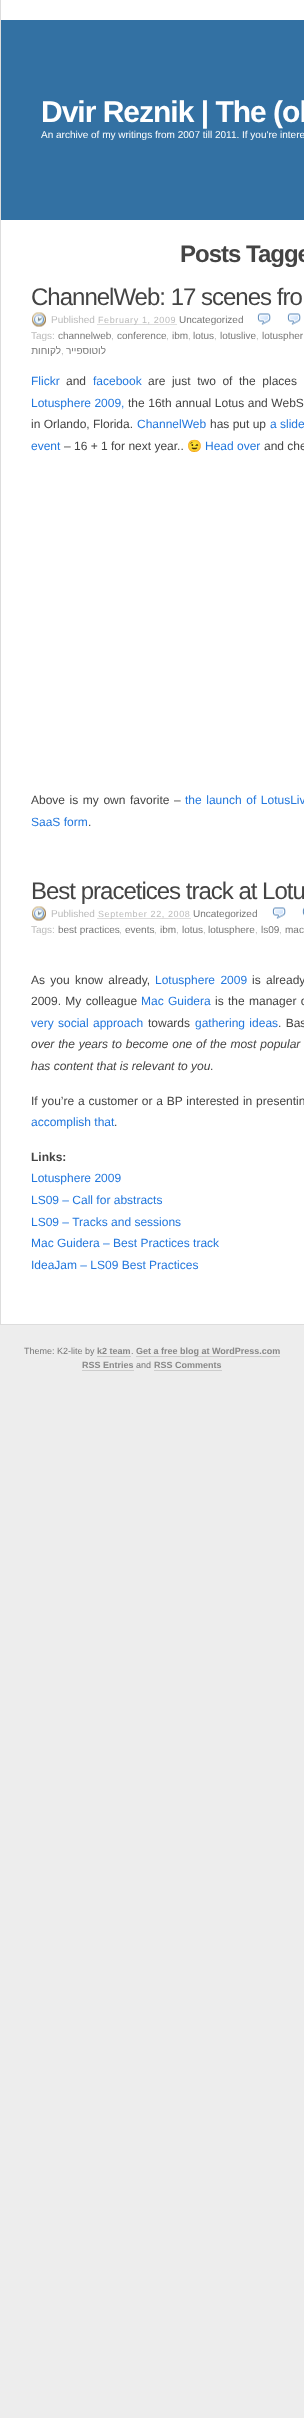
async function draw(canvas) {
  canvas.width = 304
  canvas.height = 2418
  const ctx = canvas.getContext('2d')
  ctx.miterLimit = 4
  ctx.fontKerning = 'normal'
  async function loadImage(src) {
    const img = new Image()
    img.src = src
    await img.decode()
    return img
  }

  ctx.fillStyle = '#ededed'
  ctx.fillRect(0, 0, 304, 2418)
  ctx.fillStyle = '#fff'
  ctx.fillRect(1, 0, 303, 1324)
  ctx.fillStyle = '#ddd'
  ctx.fillRect(0, 1324, 304, 1)
  ctx.fillRect(0, 0, 1, 1325)
  ctx.fillStyle = '#3371a3'
  ctx.fillRect(1, 20, 303, 200)
  ctx.letterSpacing = '-1px'
  ctx.font = 'bold 30px Liberation Sans'
  ctx.fillStyle = '#fff'
  ctx.fillText('Dvir Reznik | The (ol', 41, 122)
  ctx.letterSpacing = '0px'
  ctx.font = '10px Liberation Sans'
  ctx.fillText('An archive of my writings from 2007 till 2011. If you\'re intere', 41, 138)
  ctx.letterSpacing = '-1px'
  ctx.font = 'bold 24px Liberation Sans'
  ctx.fillStyle = '#444'
  ctx.fillText('Posts Tagge', 180, 262)
  ctx.font = '24px Liberation Sans'
  ctx.fillText('ChannelWeb: 17 scenes fro', 31, 305)
  ctx.drawImage(await loadImage('image0.png'), 32, 312, 14, 15)
  ctx.letterSpacing = '0px'
  ctx.font = '10px Liberation Sans'
  ctx.fillStyle = '#bbb'
  ctx.fillText('Published', 51, 323)
  ctx.beginPath()
  ctx.moveTo(97.5, 324.5)
  ctx.lineTo(176.5, 324.5)
  ctx.strokeStyle = '#bbb'
  ctx.setLineDash([1, 1])
  ctx.stroke()
  ctx.letterSpacing = '0.6px'
  ctx.font = '9px Liberation Sans'
  ctx.fillText('February 1, 2009', 98, 323)
  ctx.letterSpacing = '0px'
  ctx.font = '10px Liberation Sans'
  ctx.fillStyle = '#777'
  ctx.fillText('Uncategorized', 179, 323)
  ctx.drawImage(await loadImage('image1.png'), 257, 313, 14, 12)
  ctx.drawImage(await loadImage('image1.png'), 287, 313, 14, 12)
  ctx.fillStyle = '#bbb'
  ctx.fillText('Tags:', 31, 339)
  ctx.fillStyle = '#777'
  ctx.fillText('channelweb', 58, 339)
  ctx.fillStyle = '#bbb'
  ctx.fillText(',', 111, 339)
  ctx.fillStyle = '#777'
  ctx.fillText('conference', 117, 339)
  ctx.fillStyle = '#bbb'
  ctx.fillText(',', 166, 339)
  ctx.fillStyle = '#777'
  ctx.fillText('ibm', 172, 339)
  ctx.fillStyle = '#bbb'
  ctx.fillText(',', 188, 339)
  ctx.fillStyle = '#777'
  ctx.fillText('lotus', 193, 339)
  ctx.fillStyle = '#bbb'
  ctx.fillText(',', 214, 339)
  ctx.fillStyle = '#777'
  ctx.fillText('lotuslive', 220, 339)
  ctx.fillStyle = '#bbb'
  ctx.fillText(',', 256, 339)
  ctx.fillStyle = '#777'
  ctx.fillText('lotuspher', 262, 339)
  ctx.direction = 'rtl'
  ctx.fillText('לקוחות', 61, 354)
  ctx.direction = 'ltr'
  ctx.fillStyle = '#bbb'
  ctx.fillText(',', 61, 354)
  ctx.direction = 'rtl'
  ctx.fillStyle = '#777'
  ctx.fillText('לוטוספייר', 106, 354)
  ctx.direction = 'ltr'
  ctx.font = '12px Liberation Sans'
  ctx.fillStyle = '#27d'
  ctx.fillText('Flickr', 31, 385)
  ctx.fillStyle = '#444'
  ctx.fillText('and', 66, 385)
  ctx.fillStyle = '#27d'
  ctx.fillText('facebook', 93, 385)
  ctx.wordSpacing = '3.25px'
  ctx.fillStyle = '#444'
  ctx.fillText('are just two of the places', 148, 385)
  ctx.wordSpacing = '0px'
  ctx.fillStyle = '#27d'
  ctx.fillText('Lotusphere 2009,', 31, 407)
  ctx.wordSpacing = '0.25px'
  ctx.fillStyle = '#444'
  ctx.fillText('the 16th annual Lotus and WebS', 128, 407)
  ctx.wordSpacing = '0px'
  ctx.fillText('in Orlando, Florida.', 31, 428)
  ctx.fillStyle = '#27d'
  ctx.fillText('ChannelWeb', 137, 428)
  ctx.fillStyle = '#444'
  ctx.fillText('has put up', 210, 428)
  ctx.fillStyle = '#27d'
  ctx.fillText('a slide', 270, 428)
  ctx.fillText('event', 31, 450)
  ctx.fillStyle = '#444'
  ctx.fillText('– 16 + 1 for next year..', 64, 450)
  ctx.font = '12px Noto Color Emoji'
  ctx.fillText('😉', 187, 450)
  ctx.font = '12px Liberation Sans'
  ctx.fillStyle = '#27d'
  ctx.fillText('Head over', 205, 450)
  ctx.fillStyle = '#444'
  ctx.fillText('and che', 264, 450)
  ctx.wordSpacing = '1.25px'
  ctx.fillText('Above is my own favorite –', 31, 804)
  ctx.fillStyle = '#27d'
  ctx.fillText('the launch of LotusLiv', 185, 804)
  ctx.wordSpacing = '0px'
  ctx.fillText('SaaS form', 31, 826)
  ctx.fillStyle = '#444'
  ctx.fillText('.', 88, 826)
  ctx.letterSpacing = '-1px'
  ctx.font = '24px Liberation Sans'
  ctx.fillText('Best pracetices track at Lotu', 31, 899)
  ctx.drawImage(await loadImage('image0.png'), 32, 906, 14, 15)
  ctx.letterSpacing = '0px'
  ctx.font = '10px Liberation Sans'
  ctx.fillStyle = '#bbb'
  ctx.fillText('Published', 51, 917)
  ctx.beginPath()
  ctx.moveTo(97.5, 918.5)
  ctx.lineTo(190.5, 918.5)
  ctx.stroke()
  ctx.letterSpacing = '0.6px'
  ctx.font = '9px Liberation Sans'
  ctx.fillText('September 22, 2008', 98, 917)
  ctx.letterSpacing = '0px'
  ctx.font = '10px Liberation Sans'
  ctx.fillStyle = '#777'
  ctx.fillText('Uncategorized', 193, 917)
  ctx.drawImage(await loadImage('image1.png'), 272, 907, 14, 12)
  ctx.drawImage(await loadImage('image2.png'), 302, 907, 2, 9)
  ctx.fillStyle = '#bbb'
  ctx.fillText('Tags:', 31, 933)
  ctx.fillStyle = '#777'
  ctx.fillText('best practices', 58, 933)
  ctx.fillStyle = '#bbb'
  ctx.fillText(',', 119, 933)
  ctx.fillStyle = '#777'
  ctx.fillText('events', 125, 933)
  ctx.fillStyle = '#bbb'
  ctx.fillText(',', 154, 933)
  ctx.fillStyle = '#777'
  ctx.fillText('ibm', 160, 933)
  ctx.fillStyle = '#bbb'
  ctx.fillText(',', 176, 933)
  ctx.fillStyle = '#777'
  ctx.fillText('lotus', 182, 933)
  ctx.fillStyle = '#bbb'
  ctx.fillText(',', 203, 933)
  ctx.fillStyle = '#777'
  ctx.fillText('lotusphere', 208, 933)
  ctx.fillStyle = '#bbb'
  ctx.fillText(',', 255, 933)
  ctx.fillStyle = '#777'
  ctx.fillText('ls09', 261, 933)
  ctx.fillStyle = '#bbb'
  ctx.fillText(',', 279, 933)
  ctx.fillStyle = '#777'
  ctx.fillText('mac', 285, 933)
  ctx.wordSpacing = '2px'
  ctx.font = '12px Liberation Sans'
  ctx.fillStyle = '#444'
  ctx.fillText('As you know already,', 31, 984)
  ctx.fillStyle = '#27d'
  ctx.fillText('Lotusphere 2009', 155, 984)
  ctx.fillStyle = '#444'
  ctx.fillText('is already', 252, 984)
  ctx.wordSpacing = '1px'
  ctx.fillText('2009. My colleague', 31, 1005)
  ctx.fillStyle = '#27d'
  ctx.fillText('Mac Guidera', 141, 1005)
  ctx.fillStyle = '#444'
  ctx.fillText('is the manager o', 215, 1005)
  ctx.fillStyle = '#27d'
  ctx.fillText('very social approach', 31, 1027)
  ctx.wordSpacing = '0px'
  ctx.fillStyle = '#444'
  ctx.fillText('towards', 148, 1027)
  ctx.wordSpacing = '1px'
  ctx.fillStyle = '#27d'
  ctx.fillText('gathering ideas', 195, 1027)
  ctx.fillStyle = '#444'
  ctx.fillText('. Bas', 278, 1027)
  ctx.wordSpacing = '0.5px'
  ctx.font = 'italic 12px Liberation Sans'
  ctx.fillText('over the years to become one of the most popular', 31, 1048)
  ctx.wordSpacing = '0px'
  ctx.fillText('has content that is relevant to you', 31, 1070)
  ctx.font = '12px Liberation Sans'
  ctx.fillText('.', 210, 1070)
  ctx.wordSpacing = '0.5px'
  ctx.fillText('If you’re a customer or a BP interested in presentin', 31, 1105)
  ctx.wordSpacing = '0px'
  ctx.fillStyle = '#27d'
  ctx.fillText('accomplish that', 31, 1126)
  ctx.fillStyle = '#444'
  ctx.fillText('.', 114, 1126)
  ctx.font = 'bold 12px Liberation Sans'
  ctx.fillText('Links:', 31, 1161)
  ctx.font = '12px Liberation Sans'
  ctx.fillStyle = '#27d'
  ctx.fillText('Lotusphere 2009', 31, 1182)
  ctx.fillText('LS09 – Call for abstracts', 31, 1204)
  ctx.fillText('LS09 – Tracks and sessions', 31, 1226)
  ctx.fillText('Mac Guidera – Best Practices track', 31, 1247)
  ctx.fillText('IdeaJam – LS09 Best Practices', 31, 1269)
  ctx.font = '9px Liberation Sans'
  ctx.fillStyle = '#777'
  ctx.fillText('Theme: K2-lite by', 24, 1354)
  ctx.font = 'bold 9px Liberation Sans'
  ctx.fillStyle = '#888'
  ctx.fillText('k2 team', 97, 1354)
  ctx.font = '9px Liberation Sans'
  ctx.fillStyle = '#777'
  ctx.fillText('.', 131, 1354)
  ctx.fillStyle = '#ccc'
  ctx.fillRect(97, 1356, 34, 1)
  ctx.fillRect(136, 1356, 144, 1)
  ctx.font = 'bold 9px Liberation Sans'
  ctx.fillStyle = '#888'
  ctx.fillText('Get a free blog at WordPress.com', 136, 1354)
  ctx.fillText('RSS Entries', 82, 1368)
  ctx.fillStyle = '#ccc'
  ctx.fillRect(82, 1370, 52, 1)
  ctx.font = '9px Liberation Sans'
  ctx.fillStyle = '#777'
  ctx.fillText('and', 136, 1368)
  ctx.font = 'bold 9px Liberation Sans'
  ctx.fillStyle = '#888'
  ctx.fillText('RSS Comments', 154, 1368)
  ctx.fillStyle = '#ccc'
  ctx.fillRect(154, 1370, 68, 1)
}

draw(document.querySelector('canvas'))
